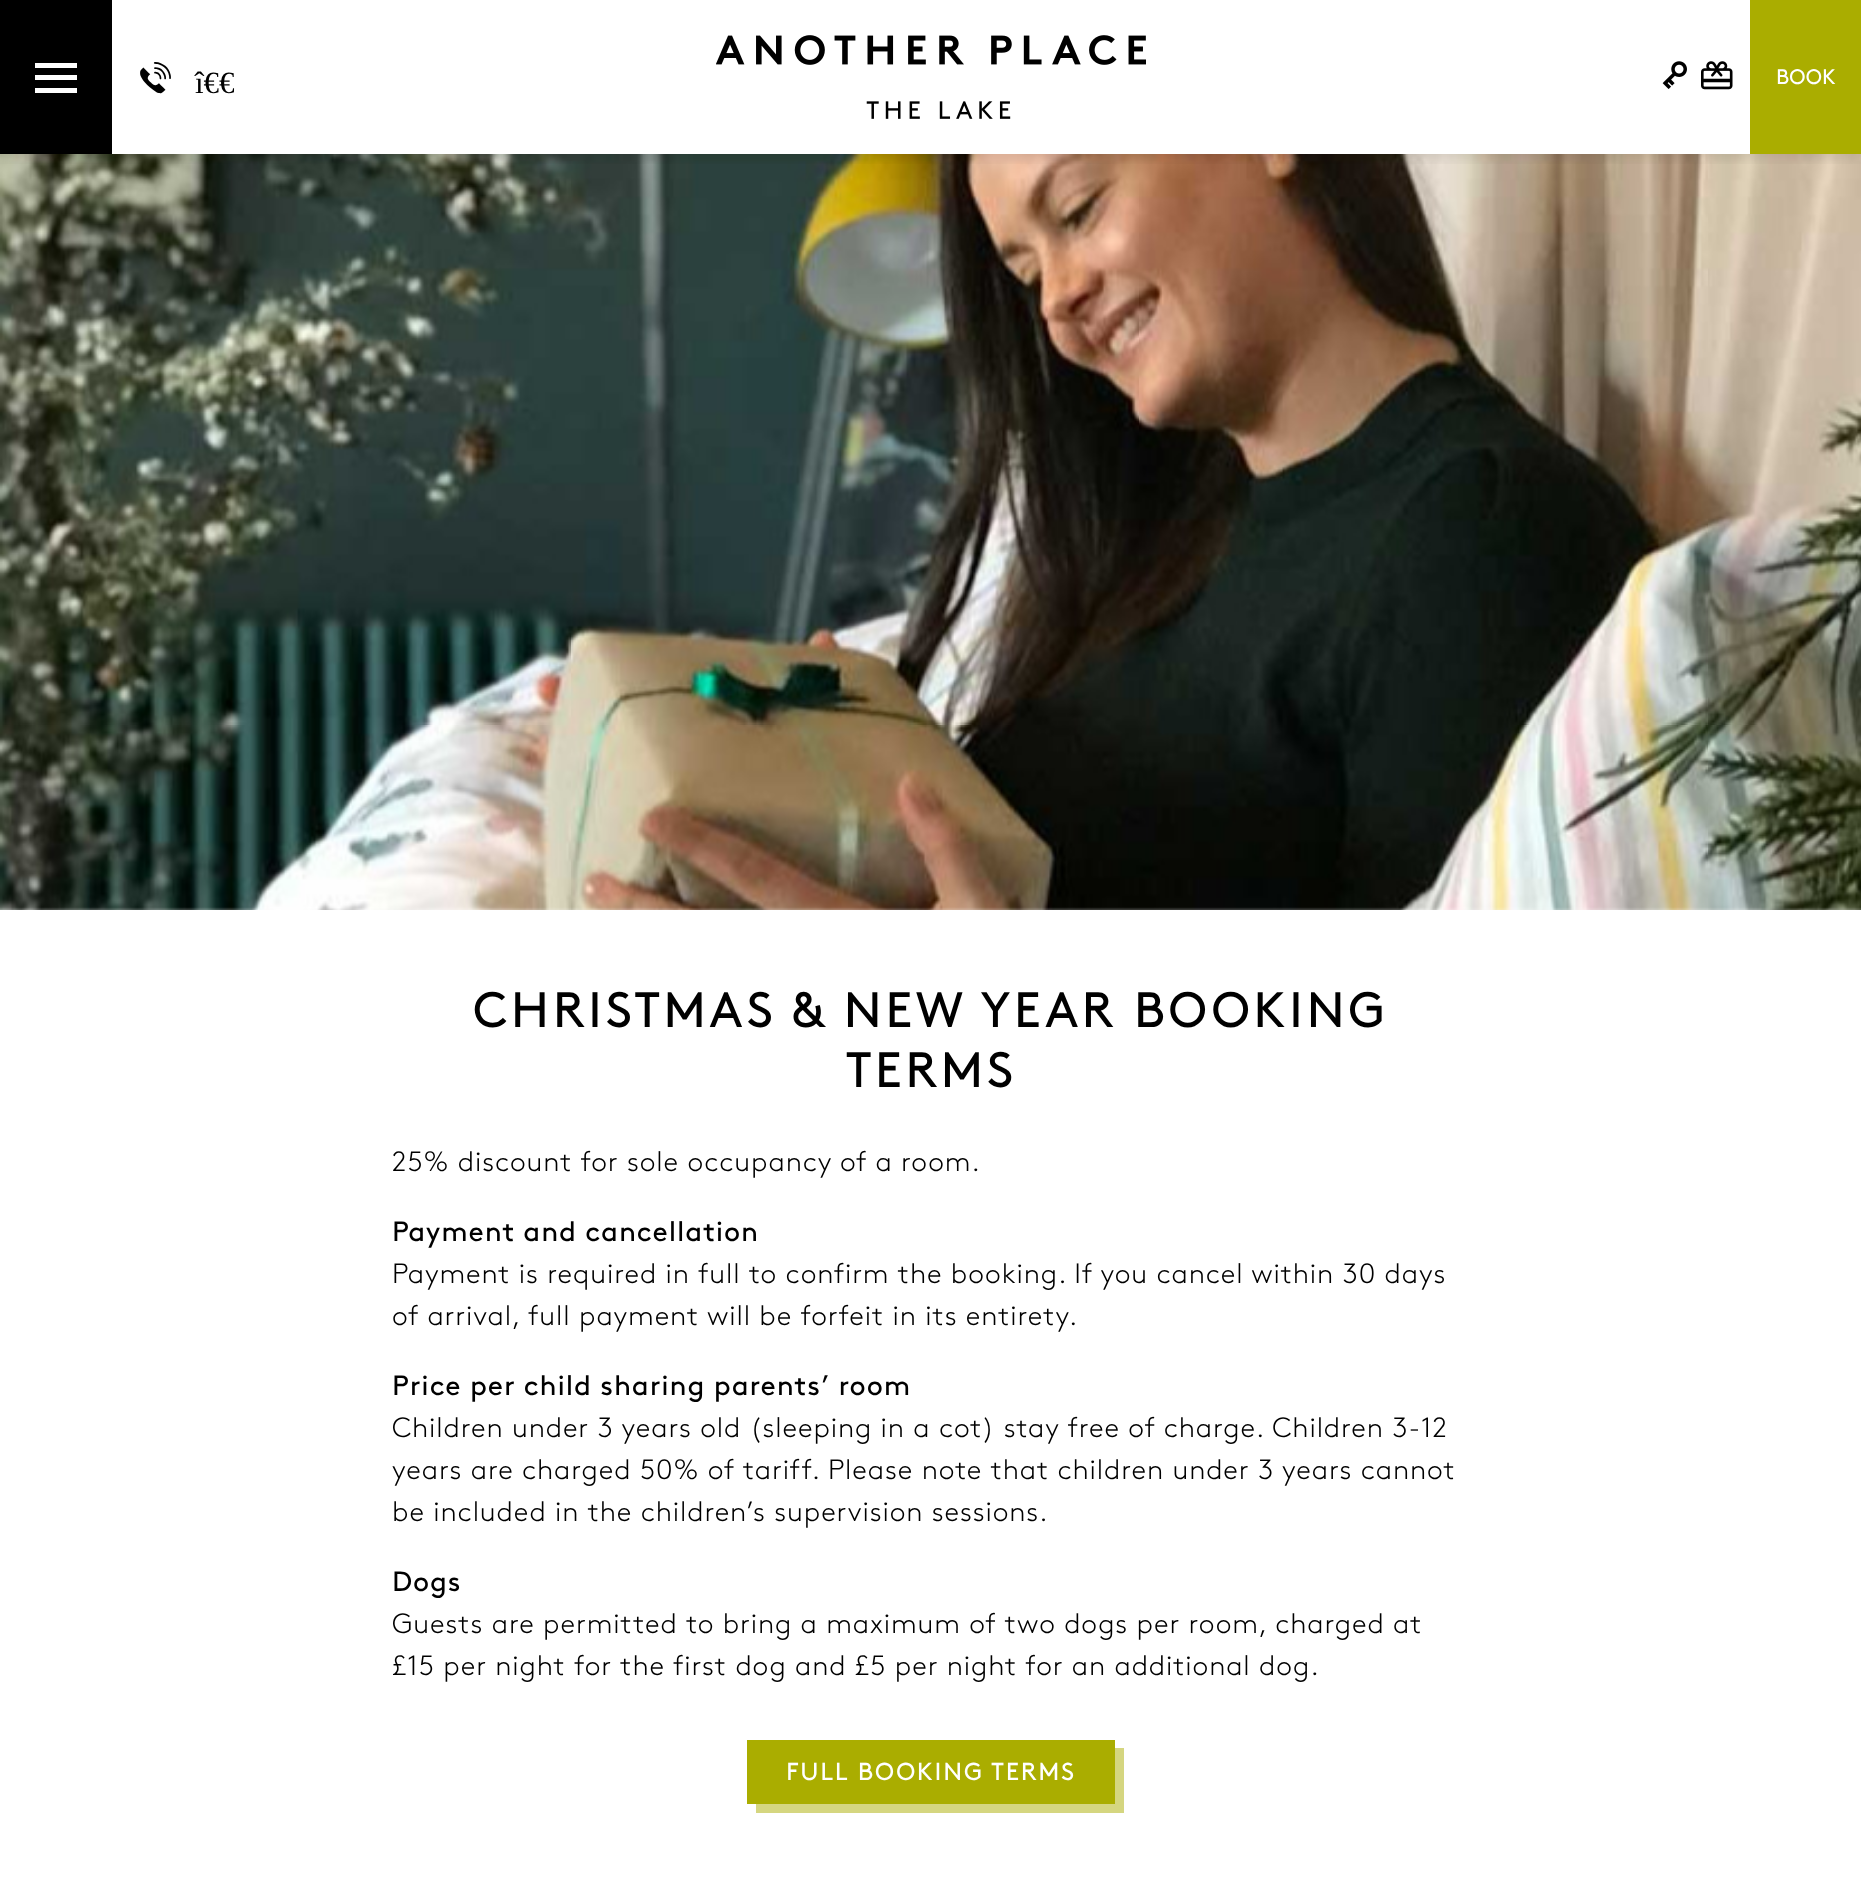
async function draw(canvas) {
  canvas.width = 1861
  canvas.height = 1882
  const ctx = canvas.getContext('2d')
  ctx.miterLimit = 4
  ctx.fontKerning = 'normal'
  async function loadImage(src) {
    const img = new Image()
    img.src = src
    await img.decode()
    return img
  }

  ctx.fillStyle = '#fff'
  ctx.fillRect(0, 0, 1861, 1882)
  ctx.drawImage(await loadImage('image3.png'), 0, 154, 1861, 756)
  ctx.save()
  ctx.beginPath()
  ctx.rect(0, 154, 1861, 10)
  ctx.clip()
  ctx.fillStyle = '#00000026'
  ctx.filter = 'blur(9px)'
  ctx.beginPath()
  ctx.rect(0, 0, 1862, 154)
  ctx.fill()
  ctx.filter = 'none'
  ctx.restore()
  ctx.fillStyle = '#000'
  ctx.fillRect(0, 0, 112, 154)
  ctx.fillStyle = '#fff'
  ctx.fillRect(35, 75, 42, 5)
  ctx.fillRect(35, 63, 42, 5)
  ctx.fillRect(35, 88, 42, 5)
  ctx.font = '31px "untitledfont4"'
  ctx.fillStyle = '#000'
  ctx.fillText('p', 140, 93)
  ctx.font = '31px Liberation Serif'
  ctx.fillText('î€€', 195, 93)
  ctx.drawImage(await loadImage('image0.png'), 716, 35, 430, 84)
  ctx.drawImage(await loadImage('image1.png'), 1662, 61, 25, 28)
  ctx.drawImage(await loadImage('image2.png'), 1701, 61, 32, 29)
  ctx.fillStyle = '#aaad00'
  ctx.fillRect(1750, 0, 111, 154)
  ctx.font = '21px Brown'
  ctx.fillStyle = '#fff'
  ctx.fillText('BOOK', 1776, 84)
  ctx.letterSpacing = '3.5px'
  ctx.font = '49.75px Brown'
  ctx.fillStyle = '#000'
  ctx.fillText('CHRISTMAS & NEW YEAR BOOKING', 473, 1027)
  ctx.fillText('TERMS', 846, 1087)
  ctx.letterSpacing = '0.88px'
  ctx.font = '300 28px Brown'
  ctx.fillText('25% discount for sole occupancy of a room.', 392, 1171)
  ctx.font = '28px Brown'
  ctx.fillText('Payment and cancellation', 392, 1241)
  ctx.font = '300 28px Brown'
  ctx.fillText('Payment is required in full to confirm the booking. If you cancel within 30 days', 392, 1283)
  ctx.fillText('of arrival, full payment will be forfeit in its entirety.', 392, 1325)
  ctx.font = '28px Brown'
  ctx.fillText('Price per child sharing parents’ room', 392, 1395)
  ctx.font = '300 28px Brown'
  ctx.fillText('Children under 3 years old (sleeping in a cot) stay free of charge. Children 3-12', 392, 1437)
  ctx.fillText('years are charged 50% of tariff. Please note that children under 3 years cannot', 392, 1479)
  ctx.fillText('be included in the children’s supervision sessions.', 392, 1521)
  ctx.font = '28px Brown'
  ctx.fillText('Dogs', 392, 1591)
  ctx.font = '300 28px Brown'
  ctx.fillText('Guests are permitted to bring a maximum of two dogs per room, charged at', 392, 1633)
  ctx.fillText('£15 per night for the first dog and £5 per night for an additional dog.', 392, 1675)
  ctx.fillStyle = '#d5d680'
  ctx.beginPath()
  ctx.moveTo(756, 1804)
  ctx.lineTo(756, 1813)
  ctx.lineTo(1124, 1813)
  ctx.lineTo(1124, 1748)
  ctx.lineTo(1115, 1748)
  ctx.lineTo(1115, 1804)
  ctx.closePath()
  ctx.fill()
  ctx.fillStyle = '#aaad00'
  ctx.fillRect(747, 1740, 368, 64)
  ctx.letterSpacing = '1.75px'
  ctx.font = '24.6px Brown'
  ctx.fillStyle = '#fff'
  ctx.fillText('FULL BOOKING TERMS', 786, 1780)
}

draw(document.querySelector('canvas'))
